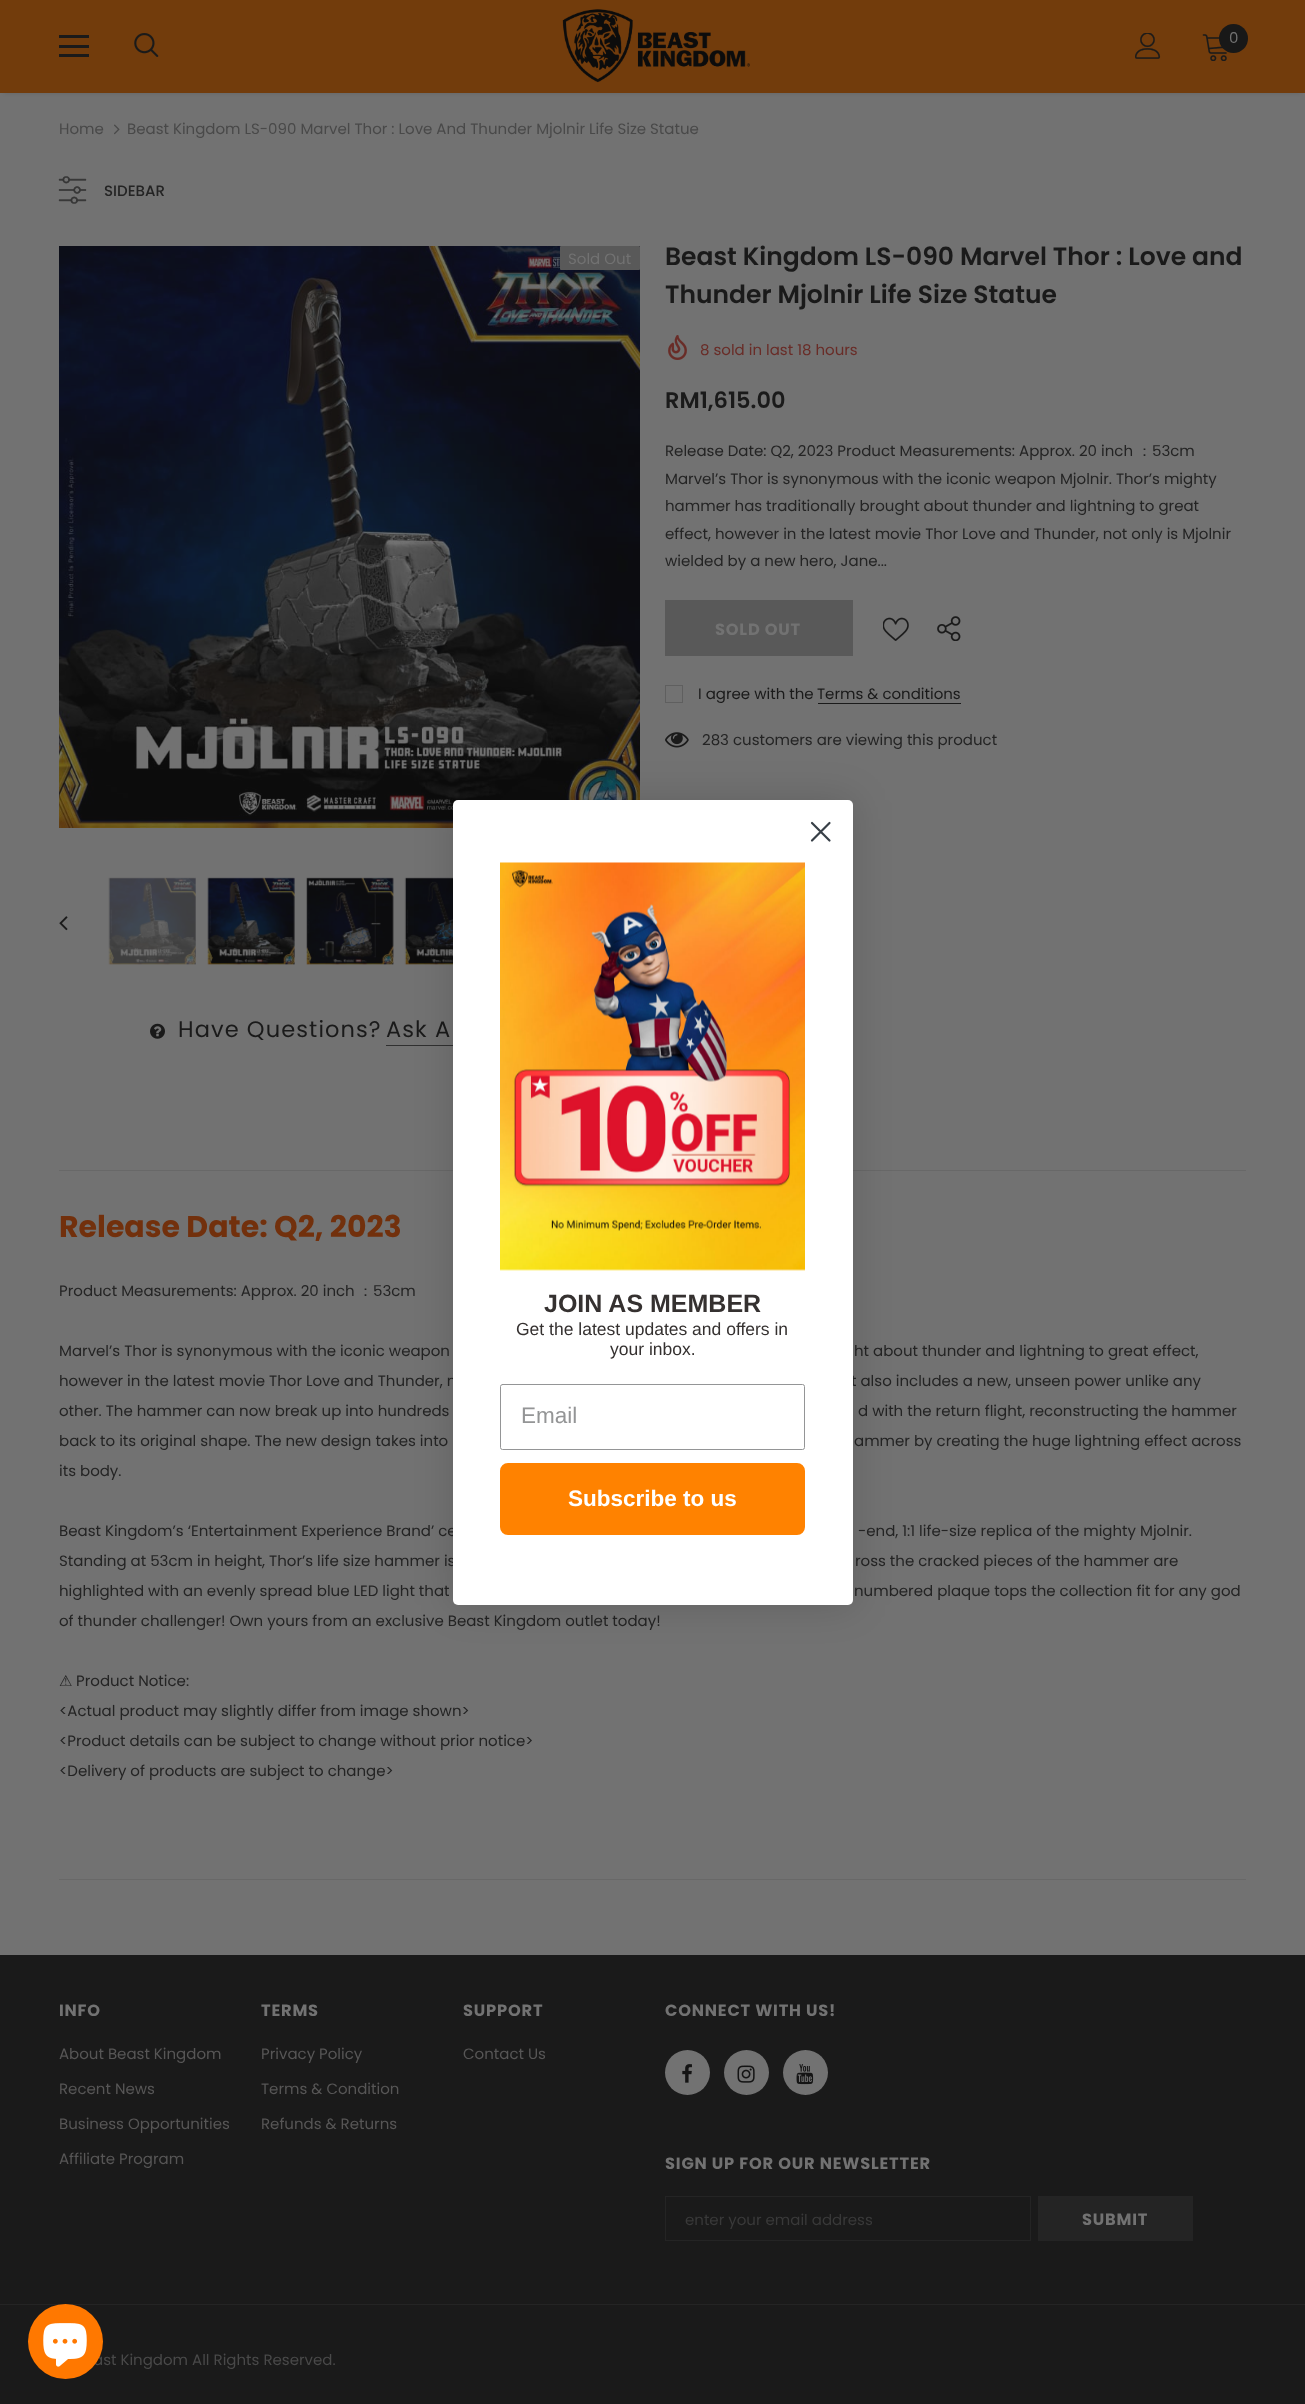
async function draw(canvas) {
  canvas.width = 1305
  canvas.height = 2404
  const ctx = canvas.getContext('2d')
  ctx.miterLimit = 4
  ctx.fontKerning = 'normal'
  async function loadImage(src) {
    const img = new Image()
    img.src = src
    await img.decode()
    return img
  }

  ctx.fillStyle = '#727272'
  ctx.fillRect(0, 0, 1305, 2404)
  ctx.fillStyle = '#0c0c0c1f'
  ctx.filter = 'blur(2px)'
  ctx.beginPath()
  ctx.rect(4, 8, 1297, 85)
  ctx.fill()
  ctx.filter = 'none'
  ctx.fillStyle = '#723c0c'
  ctx.fillRect(0, 0, 1305, 93)
  ctx.fillStyle = '#1a1a1a'
  ctx.fillRect(59, 35, 30, 3)
  ctx.fillRect(59, 45, 30, 3)
  ctx.fillRect(59, 54, 30, 3)
  ctx.drawImage(await loadImage('image0.png'), 134, 33, 25, 24)
  ctx.drawImage(await loadImage('image1.png'), 562, 9, 188, 74)
  ctx.drawImage(await loadImage('image2.png'), 1135, 33, 26, 26)
  ctx.drawImage(await loadImage('image3.png'), 1202, 34, 25, 27)
  ctx.fillStyle = '#181818'
  ctx.beginPath()
  ctx.arc(1233.5, 38.5, 14.5, 0, 2 * Math.PI)
  ctx.fill()
  ctx.font = '15px Poppins'
  ctx.fillStyle = '#727272'
  ctx.fillText('0', 1229, 43)
  ctx.fillStyle = '#494949'
  ctx.fillText('Home', 59, 134)
  ctx.drawImage(await loadImage('image4.png'), 114, 124, 6, 11)
  ctx.fillText('Beast Kingdom LS-090 Marvel Thor : Love And Thunder Mjolnir Life Size Statue', 127, 134)
  ctx.drawImage(await loadImage('image5.png'), 58, 176, 29, 28)
  ctx.font = '500 15px Poppins'
  ctx.fillStyle = '#242424'
  ctx.fillText('SIDEBAR', 104, 196)
  ctx.drawImage(await loadImage('image6.png'), 59, 246, 581, 582)
  ctx.fillStyle = '#595959'
  ctx.beginPath()
  ctx.roundRect(560, 246, 80, 24, 1)
  ctx.fill()
  ctx.font = '15px Poppins'
  ctx.fillStyle = '#727272'
  ctx.fillText('Sold Out', 568, 264)
  ctx.drawImage(await loadImage('image7.png'), 59, 916, 9, 15)
  ctx.drawImage(await loadImage('image8.png'), 108, 877, 88, 88)
  ctx.drawImage(await loadImage('image9.png'), 207, 877, 88, 88)
  ctx.drawImage(await loadImage('image10.png'), 306, 877, 88, 88)
  ctx.drawImage(await loadImage('image11.png'), 404, 877, 49, 88)
  ctx.drawImage(await loadImage('image12.png'), 150, 1023, 15, 16)
  ctx.letterSpacing = '1.1px'
  ctx.font = '22.5px Poppins'
  ctx.fillStyle = '#1a1a1a'
  ctx.fillText('Have Questions?', 178, 1037)
  ctx.fillText('Ask A', 386, 1037)
  ctx.fillStyle = '#303030'
  ctx.fillRect(386, 1045, 67, 1)
  ctx.letterSpacing = '0px'
  ctx.font = '600 25px Poppins'
  ctx.fillStyle = '#1a1a1a'
  ctx.fillText('Beast Kingdom LS-090 Marvel Thor : Love and', 665, 265)
  ctx.fillText('Thunder Mjolnir Life Size Statue', 665, 303)
  ctx.drawImage(await loadImage('image13.png'), 668, 335, 19, 25)
  ctx.font = '15px Poppins'
  ctx.fillStyle = '#692c27'
  ctx.fillText('8 sold in last 18 hours', 700, 355)
  ctx.font = '600 22.5px Poppins'
  ctx.fillStyle = '#1a1a1a'
  ctx.fillText('RM1,615.00', 665, 408)
  ctx.font = '15px Poppins'
  ctx.fillStyle = '#242424'
  ctx.fillText('Release Date: Q2, 2023 Product Measurements: Approx. 20 inch', 665, 456)
  ctx.font = '500 15px WenQuanYi Zen Hei'
  ctx.fillText('：', 1137, 456)
  ctx.font = '15px Poppins'
  ctx.fillText('53cm', 1152, 456)
  ctx.fillText('Marvel’s Thor is synonymous with the iconic weapon Mjolnir. Thor’s mighty', 665, 484)
  ctx.fillText('hammer has traditionally brought about thunder and lightning to great', 665, 511)
  ctx.fillText('effect, however in the latest movie Thor Love and Thunder, not only is Mjolnir', 665, 539)
  ctx.fillText('wielded by a new hero, Jane...', 665, 566)
  ctx.fillStyle = '#595959'
  ctx.fillRect(665, 600, 188, 56)
  ctx.letterSpacing = '0.8px'
  ctx.font = 'bold 16.25px Poppins'
  ctx.fillStyle = '#727272'
  ctx.fillText('SOLD OUT', 715, 635)
  ctx.drawImage(await loadImage('image14.png'), 883, 617, 26, 24)
  ctx.drawImage(await loadImage('image15.png'), 937, 616, 24, 25)
  ctx.strokeStyle = '#5f5f5f'
  ctx.strokeRect(665.5, 685.5, 17, 17)
  ctx.letterSpacing = '0px'
  ctx.font = '15px Poppins'
  ctx.fillStyle = '#1a1a1a'
  ctx.fillText('I agree with the', 698, 699)
  ctx.fillRect(818, 703, 143, 1)
  ctx.fillText('Terms & conditions', 817, 699)
  ctx.drawImage(await loadImage('image16.png'), 665, 732, 24, 16)
  ctx.fillStyle = '#242424'
  ctx.fillText('283 customers are viewing this product', 702, 745)
  ctx.fillStyle = '#686868'
  ctx.fillRect(59, 1170, 1187, 1)
  ctx.font = 'bold 30px Poppins'
  ctx.fillStyle = '#72300c'
  ctx.fillText('Release Date: Q2, 2023', 59, 1237)
  ctx.font = '15px Poppins'
  ctx.fillStyle = '#242424'
  ctx.fillText('Product Measurements: Approx. 20 inch', 59, 1296)
  ctx.font = '500 15px WenQuanYi Zen Hei'
  ctx.fillText('：', 358, 1296)
  ctx.font = '15px Poppins'
  ctx.fillText('53cm', 373, 1296)
  ctx.fillText('Marvel’s Thor is synonymous with the iconic weapon', 59, 1356)
  ctx.fillText('ht about thunder and lightning to great effect,', 854, 1356)
  ctx.fillText('however in the latest movie Thor Love and Thunder, n', 59, 1386)
  ctx.fillText('t also includes a new, unseen power unlike any', 851, 1386)
  ctx.fillText('other. The hammer can now break up into hundreds', 59, 1416)
  ctx.fillText('d with the return flight, reconstructing the hammer', 858, 1416)
  ctx.fillText('back to its original shape. The new design takes into', 59, 1446)
  ctx.fillText('ammer by creating the huge lightning effect across', 854, 1446)
  ctx.fillText('its body.', 59, 1476)
  ctx.fillText('Beast Kingdom’s ‘Entertainment Experience Brand’ ce', 59, 1536)
  ctx.fillText('-end, 1:1 life-size replica of the mighty Mjolnir.', 858, 1536)
  ctx.fillText('Standing at 53cm in height, Thor’s life size hammer is', 59, 1566)
  ctx.fillText('ross the cracked pieces of the hammer are', 855, 1566)
  ctx.fillText('highlighted with an evenly spread blue LED light that', 59, 1596)
  ctx.fillText('numbered plaque tops the collection fit for any god', 854, 1596)
  ctx.fillText('of thunder challenger! Own yours from an exclusive Beast Kingdom outlet today!', 59, 1626)
  ctx.font = '15px DejaVu Sans'
  ctx.fillText('⚠', 59, 1686)
  ctx.font = '15px Poppins'
  ctx.fillText('Product Notice:', 76, 1686)
  ctx.fillText('<Actual product may slightly differ from image shown>', 59, 1716)
  ctx.fillText('<Product details can be subject to change without prior notice>', 59, 1746)
  ctx.fillText('<Delivery of products are subject to change>', 59, 1776)
  ctx.fillStyle = '#686868'
  ctx.fillRect(59, 1879, 1187, 1)
  ctx.fillStyle = '#1a1a1a'
  ctx.fillRect(0, 1955, 1305, 449)
  ctx.letterSpacing = '0.8px'
  ctx.font = 'bold 16.25px Poppins'
  ctx.fillStyle = '#727272'
  ctx.fillText('INFO', 59, 2016)
  ctx.letterSpacing = '0px'
  ctx.font = '15px Poppins'
  ctx.fillStyle = '#575656'
  ctx.fillText('About Beast Kingdom', 59, 2059)
  ctx.fillText('Recent News', 59, 2094)
  ctx.fillText('Business Opportunities', 59, 2129)
  ctx.fillText('Affiliate Program', 59, 2164)
  ctx.letterSpacing = '0.8px'
  ctx.font = 'bold 16.25px Poppins'
  ctx.fillStyle = '#727272'
  ctx.fillText('TERMS', 261, 2016)
  ctx.letterSpacing = '0px'
  ctx.font = '15px Poppins'
  ctx.fillStyle = '#575656'
  ctx.fillText('Privacy Policy', 261, 2059)
  ctx.fillText('Terms & Condition', 261, 2094)
  ctx.fillText('Refunds & Returns', 261, 2129)
  ctx.letterSpacing = '0.8px'
  ctx.font = 'bold 16.25px Poppins'
  ctx.fillStyle = '#727272'
  ctx.fillText('SUPPORT', 463, 2016)
  ctx.letterSpacing = '0px'
  ctx.font = '15px Poppins'
  ctx.fillStyle = '#575656'
  ctx.fillText('Contact Us', 463, 2059)
  ctx.letterSpacing = '0.8px'
  ctx.font = 'bold 16.25px Poppins'
  ctx.fillStyle = '#727272'
  ctx.fillText('CONNECT WITH US!', 665, 2016)
  ctx.beginPath()
  ctx.arc(687.5, 2072.5, 22.5, 0, 2 * Math.PI)
  ctx.fill()
  ctx.drawImage(await loadImage('image17.png'), 682, 2064, 10, 19)
  ctx.beginPath()
  ctx.arc(746.5, 2072.5, 22.5, 0, 2 * Math.PI)
  ctx.fill()
  ctx.drawImage(await loadImage('image18.png'), 737, 2065, 18, 18)
  ctx.beginPath()
  ctx.arc(805.5, 2072.5, 22.5, 0, 2 * Math.PI)
  ctx.fill()
  ctx.drawImage(await loadImage('image19.png'), 796, 2064, 18, 21)
  ctx.fillText('SIGN UP FOR OUR NEWSLETTER', 665, 2169)
  ctx.strokeStyle = '#242424'
  ctx.strokeRect(665.5, 2196.5, 365, 44)
  ctx.letterSpacing = '0px'
  ctx.font = '15px Poppins'
  ctx.fillStyle = '#393939'
  ctx.fillText('enter your email address', 685, 2225)
  ctx.fillStyle = '#242424'
  ctx.fillRect(1038, 2196, 155, 45)
  ctx.letterSpacing = '0.8px'
  ctx.font = 'bold 16.25px Poppins'
  ctx.fillStyle = '#727272'
  ctx.fillText('SUBMIT', 1082, 2225)
  ctx.fillStyle = '#242424'
  ctx.fillRect(0, 2304, 1305, 1)
  ctx.letterSpacing = '0px'
  ctx.font = '15px Poppins'
  ctx.fillStyle = '#494949'
  ctx.fillText('ast Kingdom All Rights Reserved.', 93, 2365)
  ctx.fillStyle = '#00000026'
  ctx.filter = 'blur(19px)'
  ctx.beginPath()
  ctx.roundRect(453, 800, 400, 805, 5)
  ctx.fill()
  ctx.filter = 'none'
  ctx.fillStyle = '#fff'
  ctx.beginPath()
  ctx.roundRect(453, 800, 400, 805, 5)
  ctx.fill()
  ctx.beginPath()
  ctx.moveTo(812, 823)
  ctx.lineTo(829.5, 840.5)
  ctx.moveTo(812, 840.5)
  ctx.lineTo(829.5, 823)
  ctx.closePath()
  ctx.strokeStyle = '#373f47'
  ctx.lineWidth = 2.2
  ctx.lineCap = 'round'
  ctx.lineJoin = 'round'
  ctx.stroke()
  ctx.drawImage(await loadImage('image20.png'), 500, 862, 305, 409)
  ctx.font = 'bold 25px Liberation Sans'
  ctx.fillStyle = '#353130'
  ctx.fillText('JOIN AS MEMBER', 544, 1312)
  ctx.font = '17.5px Liberation Sans'
  ctx.fillText('Get the latest updates and offers in', 516, 1335)
  ctx.fillText('your inbox.', 610, 1355)
  ctx.beginPath()
  ctx.roundRect(500.5, 1384.5, 304, 65, 2)
  ctx.strokeStyle = '#949596'
  ctx.lineWidth = 1
  ctx.lineJoin = 'miter'
  ctx.stroke()
  ctx.font = '22.5px Liberation Sans'
  ctx.fillStyle = '#949596'
  ctx.fillText('Email', 521, 1423)
  ctx.fillStyle = '#ff8200'
  ctx.beginPath()
  ctx.roundRect(505.5, 1468.5, 294, 61, 2.5)
  ctx.fill()
  ctx.strokeStyle = '#ff8200'
  ctx.lineWidth = 11
  ctx.stroke()
  ctx.font = 'bold 22.5px Liberation Sans'
  ctx.fillStyle = '#fff'
  ctx.fillText('Subscribe to us', 568, 1506)
  ctx.fillStyle = '#ff7800'
  ctx.beginPath()
  ctx.arc(65.5, 2341.5, 37.5, 0, 2 * Math.PI)
  ctx.fill()
  ctx.drawImage(await loadImage('image21.png'), 43, 2323, 44, 44)
}

draw(document.querySelector('canvas'))
